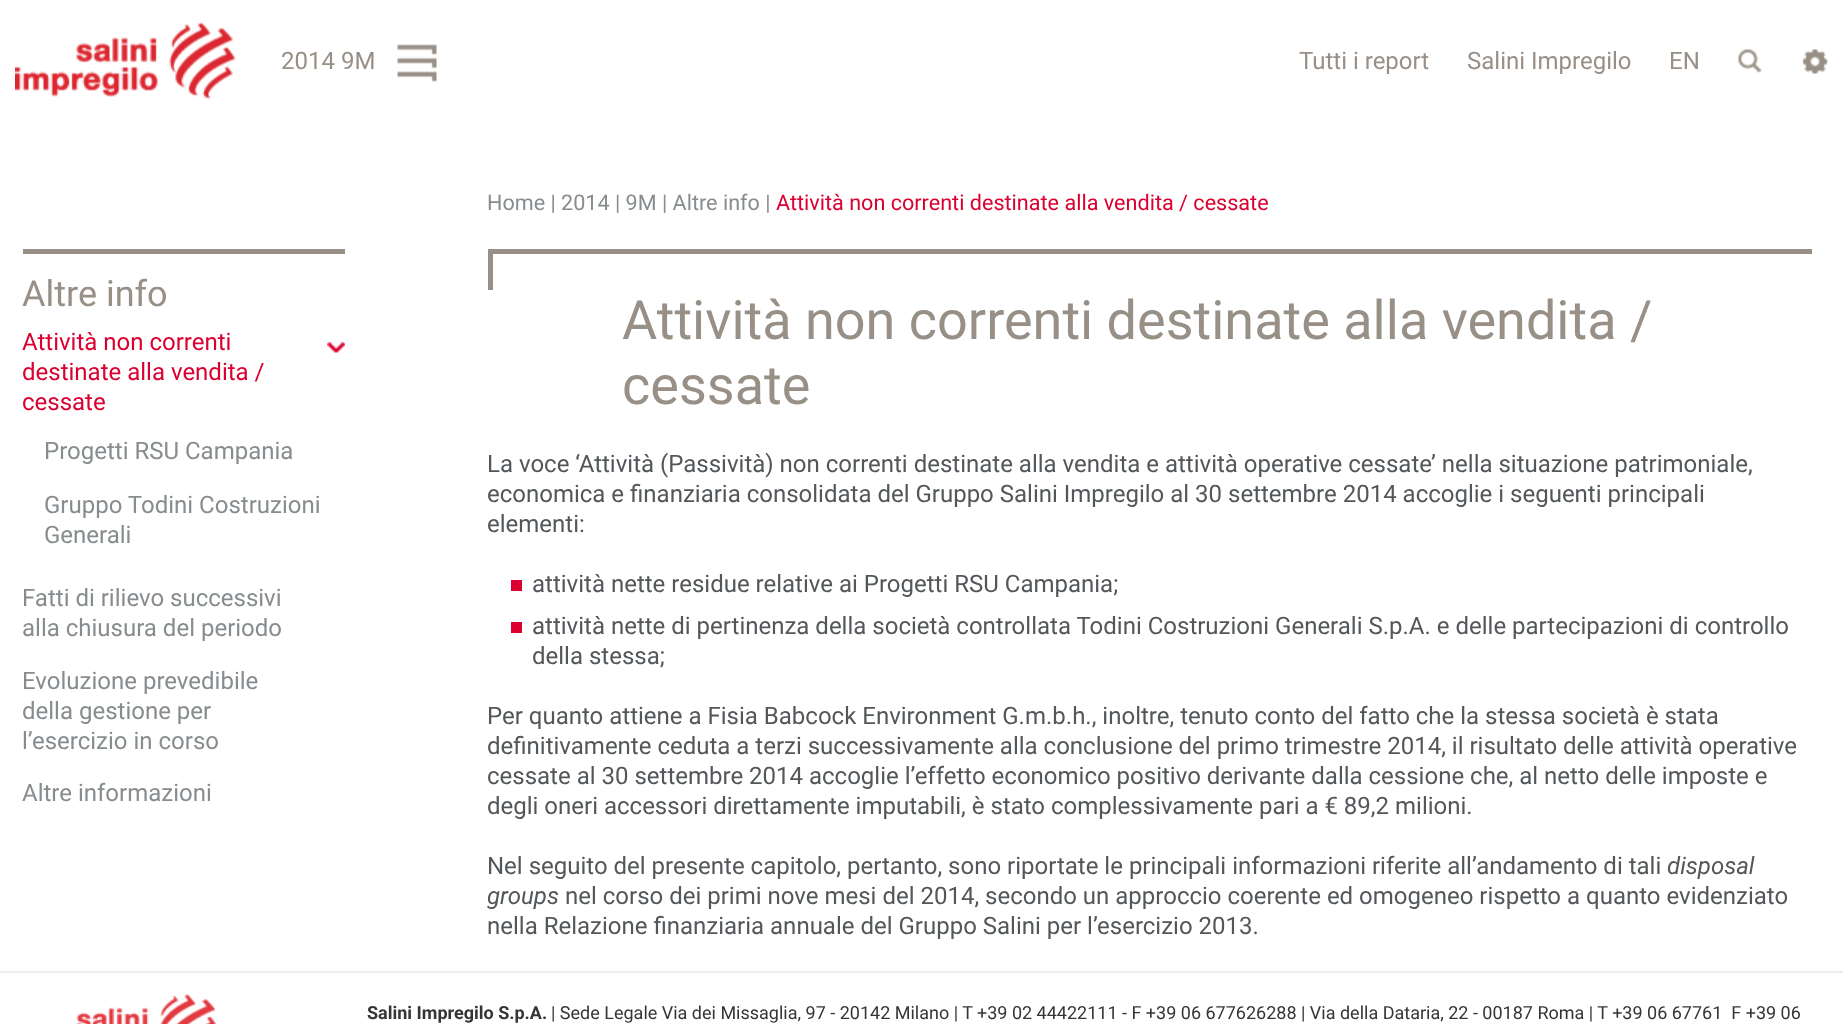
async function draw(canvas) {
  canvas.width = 1843
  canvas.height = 1024
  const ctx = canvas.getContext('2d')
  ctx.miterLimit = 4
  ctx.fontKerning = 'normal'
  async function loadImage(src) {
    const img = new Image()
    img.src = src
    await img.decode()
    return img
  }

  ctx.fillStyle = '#fff'
  ctx.fillRect(0, 0, 1843, 1024)
  ctx.drawImage(await loadImage('image0.png'), 15, 22, 221, 78)
  ctx.font = '24px Roboto'
  ctx.fillStyle = '#988f86'
  ctx.fillText('2014 9M', 281, 69)
  ctx.drawImage(await loadImage('image1.png'), 397, 44, 40, 38)
  ctx.fillText('Tutti i report', 1299, 69)
  ctx.fillText('Salini Impregilo', 1467, 69)
  ctx.fillText('EN', 1669, 69)
  ctx.drawImage(await loadImage('image2.png'), 1738, 49, 24, 24)
  ctx.drawImage(await loadImage('image3.png'), 1802, 49, 26, 25)
  ctx.font = '21.6px Roboto'
  ctx.fillStyle = '#878c8f'
  ctx.fillText('Home | 2014 | 9M | Altre info |', 487, 210)
  ctx.fillStyle = '#db002f'
  ctx.fillText('Attività non correnti destinate alla vendita / cessate', 776, 210)
  ctx.fillStyle = '#988f86'
  ctx.fillRect(23, 249, 322, 5)
  ctx.font = '36px Roboto'
  ctx.fillText('Altre info', 22, 306)
  ctx.drawImage(await loadImage('image4.png'), 327, 342, 18, 11)
  ctx.font = '24px Roboto'
  ctx.fillStyle = '#db002f'
  ctx.fillText('Attività non correnti', 22, 350)
  ctx.fillText('destinate alla vendita /', 22, 380)
  ctx.fillText('cessate', 22, 410)
  ctx.fillStyle = '#878c8f'
  ctx.fillText('Progetti RSU Campania', 44, 459)
  ctx.fillText('Gruppo Todini Costruzioni', 44, 513)
  ctx.fillText('Generali', 44, 543)
  ctx.fillText('Fatti di rilievo successivi', 22, 606)
  ctx.fillText('alla chiusura del periodo', 22, 636)
  ctx.fillText('Evoluzione prevedibile', 22, 689)
  ctx.fillText('della gestione per', 22, 719)
  ctx.fillText('l’esercizio in corso', 22, 749)
  ctx.fillText('Altre informazioni', 22, 801)
  ctx.fillStyle = '#988f86'
  ctx.fillRect(488, 249, 1324, 5)
  ctx.fillRect(488, 249, 5, 41)
  ctx.font = '54px Roboto'
  ctx.fillText('Attività non correnti destinate alla vendita /', 622, 339)
  ctx.fillText('cessate', 622, 404)
  ctx.font = '24px Roboto'
  ctx.fillStyle = '#53575a'
  ctx.fillText('La voce ‘Attività (Passività) non correnti destinate alla vendita e attività operative cessate’ nella situazione patrimoniale,', 487, 472)
  ctx.fillText('economica e finanziaria consolidata del Gruppo Salini Impregilo al 30 settembre 2014 accoglie i seguenti principali', 487, 502)
  ctx.fillText('elementi:', 487, 532)
  ctx.fillStyle = '#db002f'
  ctx.fillRect(511, 580, 11, 11)
  ctx.fillStyle = '#53575a'
  ctx.fillText('attività nette residue relative ai Progetti RSU Campania;', 532, 592)
  ctx.fillStyle = '#db002f'
  ctx.fillRect(511, 622, 11, 11)
  ctx.fillStyle = '#53575a'
  ctx.fillText('attività nette di pertinenza della società controllata Todini Costruzioni Generali S.p.A. e delle partecipazioni di controllo', 532, 634)
  ctx.fillText('della stessa;', 532, 664)
  ctx.fillText('Per quanto attiene a Fisia Babcock Environment G.m.b.h., inoltre, tenuto conto del fatto che la stessa società è stata', 487, 724)
  ctx.fillText('definitivamente ceduta a terzi successivamente alla conclusione del primo trimestre 2014, il risultato delle attività operative', 487, 754)
  ctx.fillText('cessate al 30 settembre 2014 accoglie l’effetto economico positivo derivante dalla cessione che, al netto delle imposte e', 487, 784)
  ctx.fillText('degli oneri accessori direttamente imputabili, è stato complessivamente pari a € 89,2 milioni.', 487, 814)
  ctx.fillText('Nel seguito del presente capitolo, pertanto, sono riportate le principali informazioni riferite all’andamento di tali', 487, 874)
  ctx.font = 'italic 24px Roboto'
  ctx.fillText('disposal', 1667, 874)
  ctx.fillText('groups', 487, 904)
  ctx.font = '24px Roboto'
  ctx.fillText('nel corso dei primi nove mesi del 2014, secondo un approccio coerente ed omogeneo rispetto a quanto evidenziato', 565, 904)
  ctx.fillText('nella Relazione finanziaria annuale del Gruppo Salini per l’esercizio 2013.', 487, 934)
  ctx.fillStyle = '#ededed'
  ctx.fillRect(0, 971, 1843, 2)
  ctx.drawImage(await loadImage('image5.png'), 76, 994, 141, 30)
  ctx.font = 'bold 18px Roboto'
  ctx.fillStyle = '#363434'
  ctx.fillText('Salini Impregilo S.p.A.', 367, 1019)
  ctx.font = '18px Roboto'
  ctx.fillText('| Sede Legale Via dei Missaglia, 97 - 20142 Milano | T +39 02 44422111 - F +39 06 677626288 | Via della Dataria, 22 - 00187 Roma | T +39 06 67761  F +39 06', 551, 1019)
}

draw(document.querySelector('canvas'))
